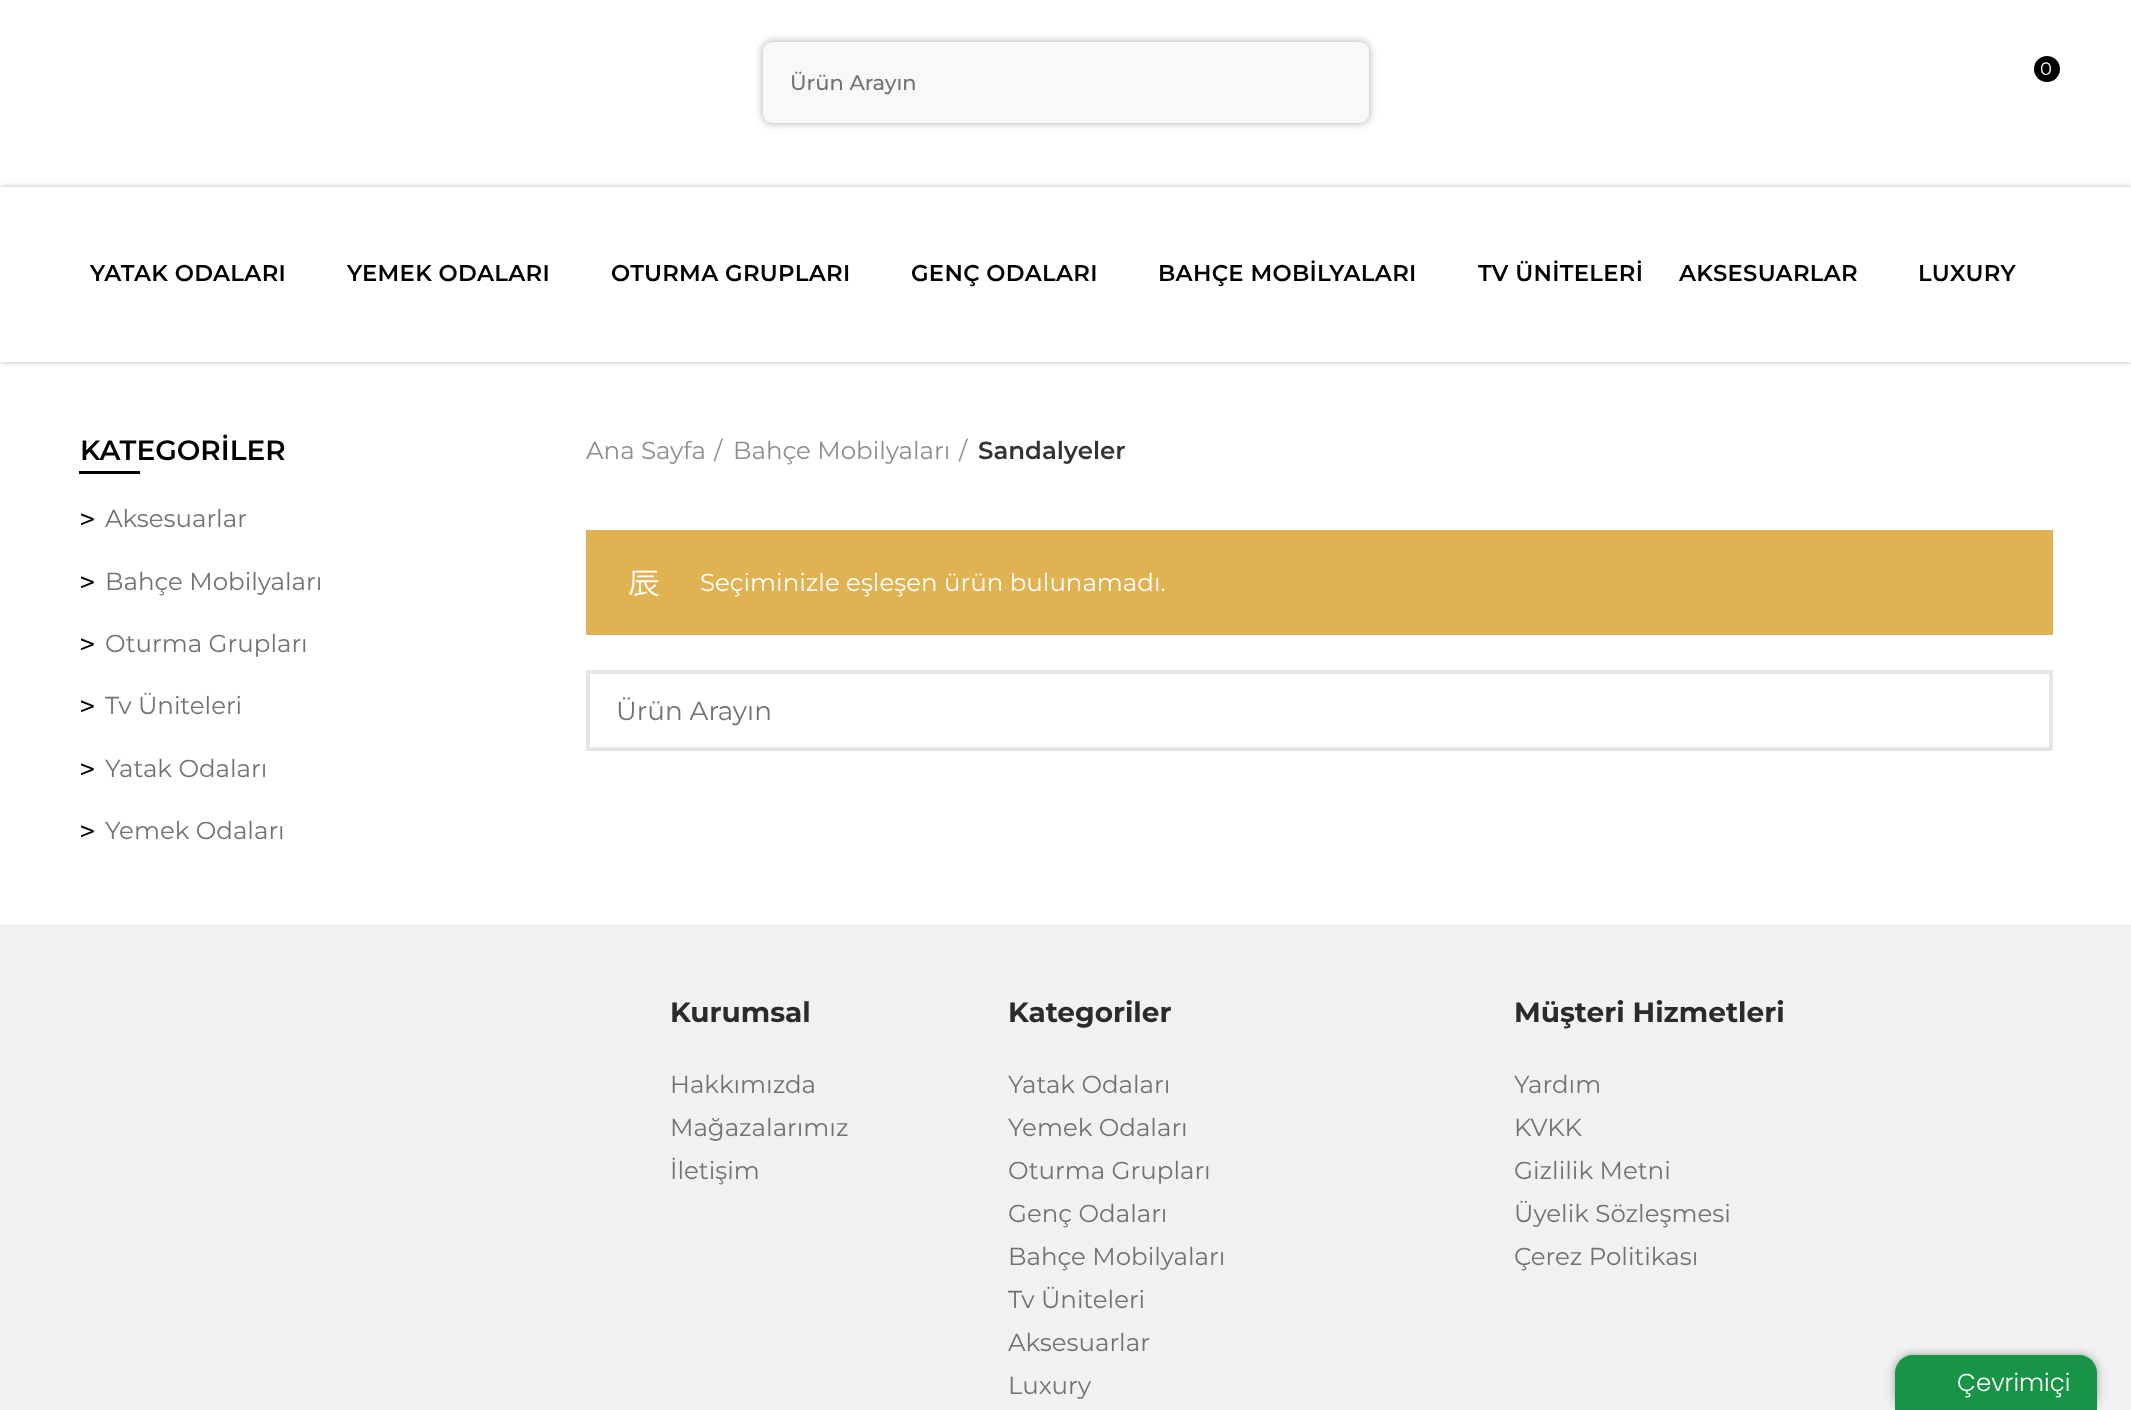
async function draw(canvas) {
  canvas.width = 2131
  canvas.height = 1410
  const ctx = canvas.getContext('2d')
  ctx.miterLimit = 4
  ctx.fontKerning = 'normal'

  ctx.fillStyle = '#fff'
  ctx.fillRect(0, 0, 2131, 1410)
  ctx.fillStyle = '#000'
  ctx.beginPath()
  ctx.arc(2047, 69, 13, 0, 2 * Math.PI)
  ctx.fill()
  ctx.font = '18px Montserrat'
  ctx.fillStyle = '#fff'
  ctx.fillText('0', 2040, 75)
  ctx.fillStyle = '#00000057'
  ctx.filter = 'blur(4.5px)'
  ctx.beginPath()
  ctx.roundRect(763, 42, 606, 81, 9)
  ctx.fill()
  ctx.filter = 'none'
  ctx.fillStyle = '#f8f8f8'
  ctx.beginPath()
  ctx.roundRect(763, 42, 606, 81, 9)
  ctx.fill()
  ctx.font = '500 21px Montserrat'
  ctx.fillStyle = '#727272'
  ctx.fillText('Ürün Arayın', 790, 90)
  ctx.fillStyle = '#0000004d'
  ctx.filter = 'blur(2.5px)'
  ctx.beginPath()
  ctx.rect(0, 187, 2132, 175)
  ctx.fill()
  ctx.filter = 'none'
  ctx.fillStyle = '#fff'
  ctx.fillRect(0, 187, 2131, 175)
  ctx.letterSpacing = '0.3px'
  ctx.font = '600 22.75px Montserrat'
  ctx.fillStyle = '#000'
  ctx.fillText('YATAK ODALARI', 90, 281)
  ctx.fillText('YEMEK ODALARI', 347, 281)
  ctx.fillText('OTURMA GRUPLARI', 611, 281)
  ctx.fillText('GENÇ ODALARI', 911, 281)
  ctx.fillText('BAHÇE MOBİLYALARI', 1158, 281)
  ctx.fillText('TV ÜNİTELERİ', 1478, 281)
  ctx.fillText('AKSESUARLAR', 1679, 281)
  ctx.fillText('LUXURY', 1918, 281)
  ctx.fillRect(79, 471, 61, 3)
  ctx.letterSpacing = '0px'
  ctx.font = '600 28px Montserrat'
  ctx.fillText('KATEGORİLER', 80, 460)
  ctx.font = '24.5px DejaVu Sans Mono'
  ctx.fillText('>', 80, 527)
  ctx.font = '24.5px Montserrat'
  ctx.fillStyle = '#727272'
  ctx.fillText('Aksesuarlar', 105, 527)
  ctx.font = '24.5px DejaVu Sans Mono'
  ctx.fillStyle = '#000'
  ctx.fillText('>', 80, 590)
  ctx.font = '24.5px Montserrat'
  ctx.fillStyle = '#727272'
  ctx.fillText('Bahçe Mobilyaları', 105, 590)
  ctx.font = '24.5px DejaVu Sans Mono'
  ctx.fillStyle = '#000'
  ctx.fillText('>', 80, 652)
  ctx.font = '24.5px Montserrat'
  ctx.fillStyle = '#727272'
  ctx.fillText('Oturma Grupları', 105, 652)
  ctx.font = '24.5px DejaVu Sans Mono'
  ctx.fillStyle = '#000'
  ctx.fillText('>', 80, 714)
  ctx.font = '24.5px Montserrat'
  ctx.fillStyle = '#727272'
  ctx.fillText('Tv Üniteleri', 105, 714)
  ctx.font = '24.5px DejaVu Sans Mono'
  ctx.fillStyle = '#000'
  ctx.fillText('>', 80, 777)
  ctx.font = '24.5px Montserrat'
  ctx.fillStyle = '#727272'
  ctx.fillText('Yatak Odaları', 105, 777)
  ctx.font = '24.5px DejaVu Sans Mono'
  ctx.fillStyle = '#000'
  ctx.fillText('>', 80, 839)
  ctx.font = '24.5px Montserrat'
  ctx.fillStyle = '#727272'
  ctx.fillText('Yemek Odaları', 105, 839)
  ctx.fillStyle = '#8e8e8e'
  ctx.fillText('Ana Sayfa', 586, 459)
  ctx.fillText('/', 714, 459)
  ctx.fillText('Bahçe Mobilyaları', 733, 459)
  ctx.fillText('/', 959, 459)
  ctx.font = '600 24.5px Montserrat'
  ctx.fillStyle = '#333'
  ctx.fillText('Sandalyeler', 978, 459)
  ctx.fillStyle = '#e0b252'
  ctx.fillRect(586, 530, 1467, 105)
  ctx.font = '500 32px WenQuanYi Zen Hei'
  ctx.fillStyle = '#fff'
  ctx.fillText('辰', 628, 593)
  ctx.font = '24.5px Montserrat'
  ctx.fillText('Seçiminizle eşleşen ürün bulunamadı.', 700, 591)
  ctx.strokeStyle = '#e6e6e6'
  ctx.lineWidth = 4
  ctx.strokeRect(588, 672, 1463, 77)
  ctx.font = '26.25px Montserrat'
  ctx.fillStyle = '#727272'
  ctx.fillText('Ürün Arayın', 616, 720)
  ctx.fillStyle = '#f1f1f1'
  ctx.fillRect(0, 924, 2131, 486)
  ctx.font = 'bold 28px Montserrat'
  ctx.fillStyle = '#2d2a2a'
  ctx.fillText('Kurumsal', 670, 1022)
  ctx.font = '24.5px Montserrat'
  ctx.fillStyle = '#727272'
  ctx.fillText('Hakkımızda', 670, 1093)
  ctx.fillText('Mağazalarımız', 670, 1136)
  ctx.fillText('İletişim', 670, 1179)
  ctx.font = 'bold 28px Montserrat'
  ctx.fillStyle = '#2d2a2a'
  ctx.fillText('Kategoriler', 1008, 1022)
  ctx.font = '24.5px Montserrat'
  ctx.fillStyle = '#727272'
  ctx.fillText('Yatak Odaları', 1008, 1093)
  ctx.fillText('Yemek Odaları', 1008, 1136)
  ctx.fillText('Oturma Grupları', 1008, 1179)
  ctx.fillText('Genç Odaları', 1008, 1222)
  ctx.fillText('Bahçe Mobilyaları', 1008, 1265)
  ctx.fillText('Tv Üniteleri', 1008, 1308)
  ctx.fillText('Aksesuarlar', 1008, 1351)
  ctx.fillText('Luxury', 1008, 1394)
  ctx.font = 'bold 28px Montserrat'
  ctx.fillStyle = '#2d2a2a'
  ctx.fillText('Müşteri Hizmetleri', 1514, 1022)
  ctx.font = '24.5px Montserrat'
  ctx.fillStyle = '#727272'
  ctx.fillText('Yardım', 1514, 1093)
  ctx.fillText('KVKK', 1514, 1136)
  ctx.fillText('Gizlilik Metni', 1514, 1179)
  ctx.fillText('Üyelik Sözleşmesi', 1514, 1222)
  ctx.fillText('Çerez Politikası', 1514, 1265)
  ctx.fillStyle = '#00000059'
  ctx.filter = 'blur(5px)'
  ctx.beginPath()
  ctx.roundRect(1895, 1355, 202, 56, 18)
  ctx.fill()
  ctx.filter = 'none'
  ctx.fillStyle = '#189446'
  ctx.beginPath()
  ctx.moveTo(1913, 1355)
  ctx.lineTo(2079, 1355)
  ctx.bezierCurveTo(2089, 1355, 2097, 1363, 2097, 1373)
  ctx.lineTo(2097, 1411)
  ctx.lineTo(1895, 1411)
  ctx.lineTo(1895, 1373)
  ctx.bezierCurveTo(1895, 1363, 1903, 1355, 1913, 1355)
  ctx.closePath()
  ctx.fill()
  ctx.font = '300 24.5px Poppins'
  ctx.fillStyle = '#fff'
  ctx.fillText('Çevrimiçi', 1957, 1391)
}

draw(document.querySelector('canvas'))
